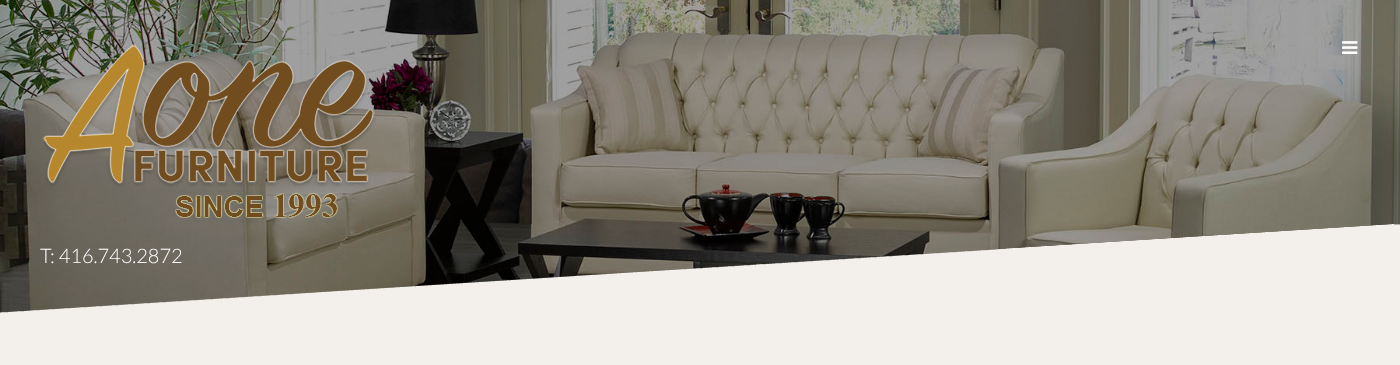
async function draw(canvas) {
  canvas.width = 1400
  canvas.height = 365
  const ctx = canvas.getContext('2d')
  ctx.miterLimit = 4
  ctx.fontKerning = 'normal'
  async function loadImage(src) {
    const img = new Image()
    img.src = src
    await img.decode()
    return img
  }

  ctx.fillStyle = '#f3f0eb'
  ctx.fillRect(0, 0, 1400, 365)
  ctx.drawImage(await loadImage('image1.png'), 0, 0, 1400, 313)
  ctx.drawImage(await loadImage('image0.png'), 1342, 41, 16, 13)
  ctx.drawImage(await loadImage('image2.png'), 0, 224, 1400, 89)
  ctx.drawImage(await loadImage('image3.png'), 43, 44, 333, 174)
  ctx.font = '300 20px Lato'
  ctx.fillStyle = '#fff'
  ctx.fillText('T: 416.743.2872', 40, 263)
}

draw(document.querySelector('canvas'))
